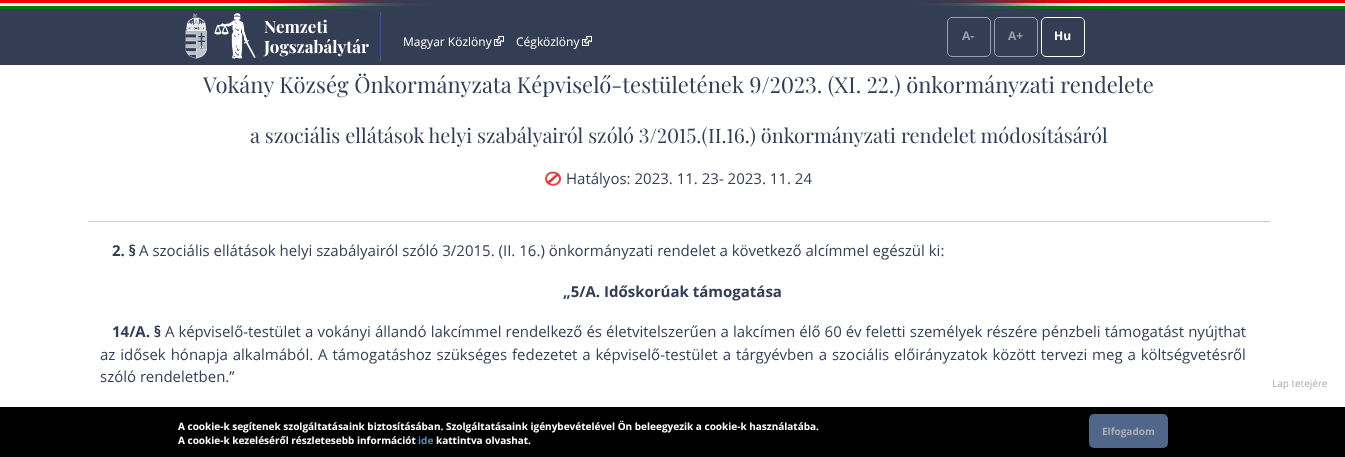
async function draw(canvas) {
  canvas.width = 1345
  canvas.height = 457
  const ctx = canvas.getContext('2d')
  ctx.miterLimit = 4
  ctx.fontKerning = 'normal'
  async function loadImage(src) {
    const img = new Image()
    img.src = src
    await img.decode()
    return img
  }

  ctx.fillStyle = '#fff'
  ctx.fillRect(0, 0, 1345, 457)
  ctx.fillStyle = '#333e55'
  ctx.fillRect(0, 9, 1345, 56)
  ctx.drawImage(await loadImage('image0.png'), 0, 0, 1345, 9)
  ctx.fillRect(178, 0, 990, 9)
  ctx.drawImage(await loadImage('image1.png'), 178, 0, 990, 9)
  ctx.drawImage(await loadImage('image2.png'), 185, 13, 71, 46)
  ctx.fillStyle = '#3d5988'
  ctx.fillRect(380, 12, 1, 49)
  ctx.font = 'bold 17px Playfair Display'
  ctx.fillStyle = '#fff'
  ctx.fillText('Nemzeti', 264, 33)
  ctx.fillText('Jogszabálytár', 264, 53)
  ctx.font = '12px Open Sans'
  ctx.fillText('Magyar Közlöny', 403, 46)
  ctx.drawImage(await loadImage('image3.png'), 494, 36, 10, 10)
  ctx.fillText('Cégközlöny', 516, 46)
  ctx.drawImage(await loadImage('image3.png'), 582, 36, 10, 10)
  ctx.beginPath()
  ctx.roundRect(947.5, 17.5, 43, 39, 4.5)
  ctx.strokeStyle = '#999faa'
  ctx.stroke()
  ctx.font = 'bold 12px Open Sans'
  ctx.fillStyle = '#999faa'
  ctx.fillText('A-', 962, 40)
  ctx.beginPath()
  ctx.roundRect(994.5, 17.5, 43, 39, 4.5)
  ctx.stroke()
  ctx.fillText('A+', 1008, 40)
  ctx.beginPath()
  ctx.roundRect(1041.5, 17.5, 43, 39, 4.5)
  ctx.strokeStyle = '#fff'
  ctx.stroke()
  ctx.fillStyle = '#fff'
  ctx.fillText('Hu', 1054, 40)
  ctx.fillStyle = '#ccc'
  ctx.fillRect(88, 221, 1182, 1)
  ctx.font = '22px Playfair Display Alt'
  ctx.fillStyle = '#333e55'
  ctx.fillText('Vokány Község Önkormányzata Képviselő-testületének 9/2023. (XI. 22.) önkormányzati rendelete', 203, 93)
  ctx.font = '20px Playfair Display Alt'
  ctx.fillText('a szociális ellátások helyi szabályairól szóló 3/2015.(II.16.) önkormányzati rendelet módosításáról', 250, 143)
  ctx.drawImage(await loadImage('image4.png'), 544, 171, 17, 16)
  ctx.font = '15px Open Sans'
  ctx.fillText('Hatályos: 2023. 11. 23- 2023. 11. 24', 566, 184)
  ctx.font = 'bold 15px Open Sans'
  ctx.fillText('2. §', 112, 256)
  ctx.font = '15px Open Sans'
  ctx.fillText('A szociális ellátások helyi szabályairól szóló 3/2015. (II. 16.) önkormányzati rendelet a következő alcímmel egészül ki:', 139, 256)
  ctx.font = 'bold 15px Open Sans'
  ctx.fillText('„5/A. Időskorúak támogatása', 563, 297)
  ctx.fillText('14/A. §', 112, 337)
  ctx.wordSpacing = '0.2px'
  ctx.font = '15px Open Sans'
  ctx.fillText('A képviselő-testület a vokányi állandó lakcímmel rendelkező és életvitelszerűen a lakcímen élő 60 év feletti személyek részére pénzbeli támogatást nyújthat', 165, 337)
  ctx.wordSpacing = '1px'
  ctx.fillText('az idősek hónapja alkalmából. A támogatáshoz szükséges fedezetet a képviselő-testület a tárgyévben a szociális előirányzatok között tervezi meg a költségvetésről', 100, 360)
  ctx.wordSpacing = '0px'
  ctx.fillText('szóló rendeletben.”', 100, 382)
  ctx.font = '10px Open Sans'
  ctx.fillStyle = '#afafaf'
  ctx.fillText('Lap tetejére', 1272, 387)
  ctx.fillStyle = '#000'
  ctx.fillRect(0, 407, 1345, 50)
  ctx.font = 'bold 10px Open Sans'
  ctx.fillStyle = '#fff'
  ctx.fillText('A cookie-k segítenek szolgáltatásaink biztosításában. Szolgáltatásaink igénybevételével Ön beleegyezik a cookie-k használatába.', 178, 430)
  ctx.fillText('A cookie-k kezeléséről részletesebb információt', 178, 444)
  ctx.fillStyle = '#5d89b8'
  ctx.fillText('ide', 418, 444)
  ctx.fillStyle = '#fff'
  ctx.fillText('kattintva olvashat.', 436, 444)
  ctx.fillStyle = '#51668b'
  ctx.beginPath()
  ctx.roundRect(1089, 414, 79, 34, 5)
  ctx.fill()
  ctx.fillStyle = '#afafaf'
  ctx.fillText('Elfogadom', 1102, 435)
}

draw(document.querySelector('canvas'))
